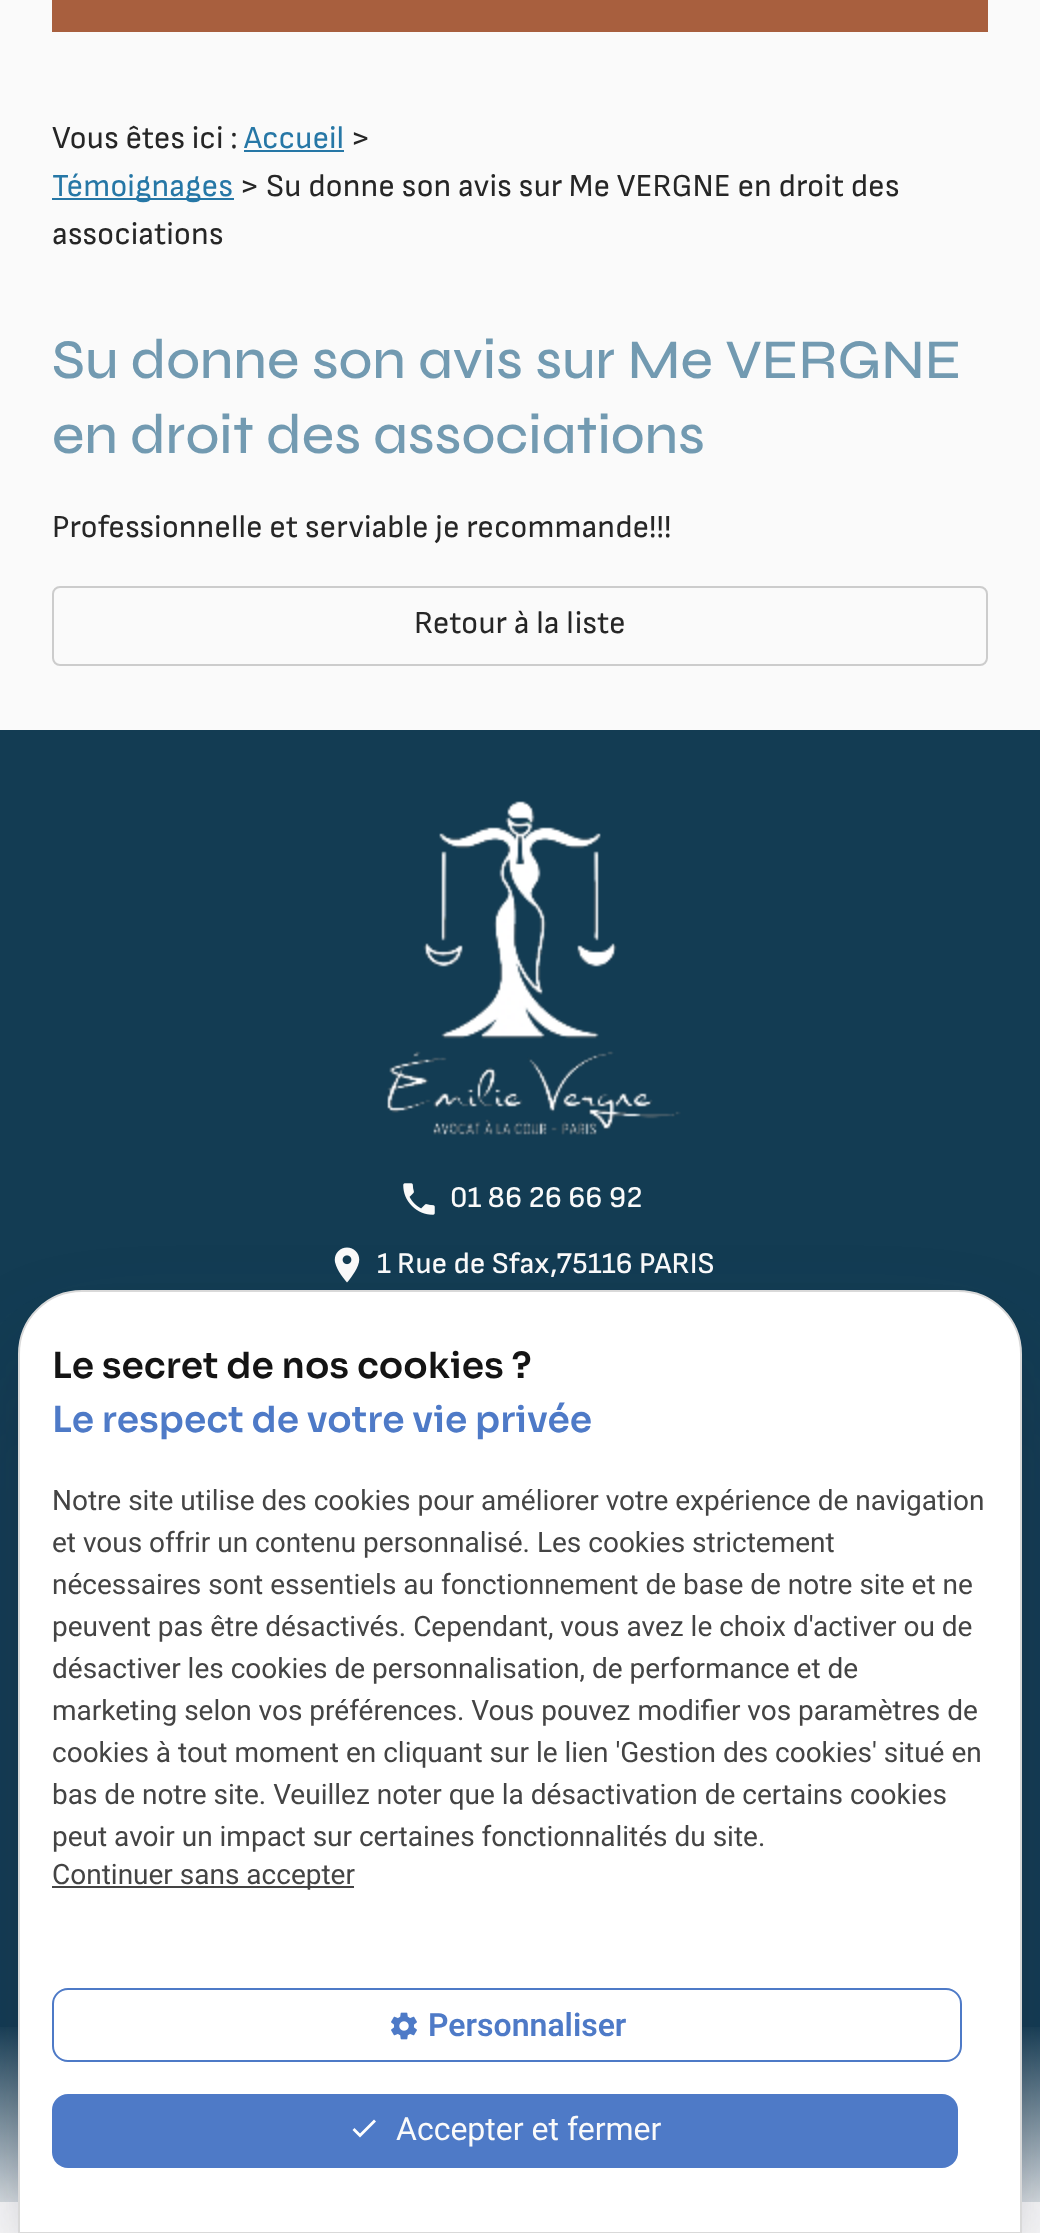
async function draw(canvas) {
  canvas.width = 1040
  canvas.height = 2233
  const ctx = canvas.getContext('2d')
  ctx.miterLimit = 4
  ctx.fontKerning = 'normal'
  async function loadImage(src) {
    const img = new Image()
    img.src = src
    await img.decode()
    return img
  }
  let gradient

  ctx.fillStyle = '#fafafa'
  ctx.fillRect(0, 0, 1040, 2233)
  ctx.fillStyle = '#a85f3e'
  ctx.fillRect(52, 0, 936, 32)
  ctx.font = '32px Sofia Sans'
  ctx.fillStyle = '#262626'
  ctx.fillText('Vous êtes ici :', 52, 148)
  ctx.fillStyle = '#2677a6'
  ctx.fillText('Accueil', 244, 148)
  ctx.fillRect(244, 150, 100, 2)
  ctx.fillStyle = '#262626'
  ctx.fillText('>', 351, 148)
  ctx.fillStyle = '#2677a6'
  ctx.fillRect(52, 198, 182, 2)
  ctx.fillText('Témoignages', 52, 196)
  ctx.fillStyle = '#262626'
  ctx.fillText('> Su donne son avis sur Me VERGNE en droit des', 240, 196)
  ctx.fillText('associations', 52, 244)
  ctx.font = '500 56px Syne'
  ctx.fillStyle = '#729ab1'
  ctx.fillText('Su donne son avis sur Me VERGNE', 52, 378)
  ctx.fillText('en droit des associations', 52, 453)
  ctx.font = '32px Sofia Sans'
  ctx.fillStyle = '#262626'
  ctx.fillText('Professionnelle et serviable je recommande!!!', 52, 537)
  ctx.beginPath()
  ctx.roundRect(53, 587, 934, 78, 7)
  ctx.strokeStyle = '#ccc'
  ctx.lineWidth = 2
  ctx.stroke()
  ctx.fillText('Retour à la liste', 414, 633)
  ctx.fillStyle = '#133c53'
  ctx.fillRect(0, 730, 1040, 1472)
  ctx.drawImage(await loadImage('image0.png'), 387, 801, 294, 334)
  ctx.drawImage(await loadImage('image1.png'), 403, 1183, 32, 32)
  ctx.font = '500 30px Sofia Sans'
  ctx.fillStyle = '#fafafa'
  ctx.fillText('01 86 26 66 92', 450, 1207)
  ctx.drawImage(await loadImage('image2.png'), 334, 1247, 26, 36)
  ctx.fillText('1 Rue de Sfax,75116 PARIS', 377, 1273)
  gradient = ctx.createLinearGradient(520, 2022, 520, 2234)
  gradient.addColorStop(0, '#fafafa00')
  gradient.addColorStop(1, '#fafafa')
  ctx.fillStyle = gradient
  ctx.fillRect(0, 2027, 1040, 175)
  ctx.fillStyle = '#0000004d'
  ctx.filter = 'blur(36px)'
  ctx.beginPath()
  ctx.roundRect(54, 1362, 932, 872, 28)
  ctx.fill()
  ctx.filter = 'none'
  ctx.fillStyle = '#32325d40'
  ctx.filter = 'blur(60px)'
  ctx.beginPath()
  ctx.roundRect(42, 1374, 956, 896, 40)
  ctx.fill()
  ctx.filter = 'none'
  ctx.fillStyle = '#fff'
  ctx.beginPath()
  ctx.moveTo(82, 1291)
  ctx.lineTo(958, 1291)
  ctx.bezierCurveTo(993, 1291, 1021, 1319, 1021, 1354)
  ctx.lineTo(1021, 2233)
  ctx.lineTo(19, 2233)
  ctx.lineTo(19, 1354)
  ctx.bezierCurveTo(19, 1319, 47, 1291, 82, 1291)
  ctx.closePath()
  ctx.fill()
  ctx.strokeStyle = '#d9d9d9'
  ctx.stroke()
  ctx.font = '600 36px Sora'
  ctx.fillStyle = '#141414'
  ctx.fillText('Le secret de nos cookies ?', 52, 1378)
  ctx.fillStyle = '#4e7ac7'
  ctx.fillText('Le respect de votre vie privée', 52, 1432)
  ctx.font = '28px Roboto'
  ctx.fillStyle = '#444'
  ctx.fillText('Notre site utilise des cookies pour améliorer votre expérience de navigation', 52, 1510)
  ctx.fillText('et vous offrir un contenu personnalisé. Les cookies strictement', 52, 1552)
  ctx.fillText('nécessaires sont essentiels au fonctionnement de base de notre site et ne', 52, 1594)
  ctx.fillText('peuvent pas être désactivés. Cependant, vous avez le choix d\'activer ou de', 52, 1636)
  ctx.fillText('désactiver les cookies de personnalisation, de performance et de', 52, 1678)
  ctx.fillText('marketing selon vos préférences. Vous pouvez modifier vos paramètres de', 52, 1720)
  ctx.fillText('cookies à tout moment en cliquant sur le lien \'Gestion des cookies\' situé en', 52, 1762)
  ctx.fillText('bas de notre site. Veuillez noter que la désactivation de certains cookies', 52, 1804)
  ctx.fillText('peut avoir un impact sur certaines fonctionnalités du site.', 52, 1846)
  ctx.fillRect(52, 1886, 302, 2)
  ctx.fillText('Continuer sans accepter', 52, 1884)
  ctx.beginPath()
  ctx.roundRect(53, 1989, 908, 72, 15)
  ctx.strokeStyle = '#4e7ac7'
  ctx.stroke()
  ctx.drawImage(await loadImage('image3.png'), 391, 2012, 26, 28)
  ctx.font = '600 32px Roboto'
  ctx.fillStyle = '#4e7ac7'
  ctx.fillText('Personnaliser', 428, 2036)
  ctx.beginPath()
  ctx.roundRect(52, 2094, 906, 74, 16)
  ctx.fill()
  ctx.fillStyle = '#fff'
  ctx.beginPath()
  ctx.moveTo(360, 2133.5)
  ctx.lineTo(374, 2119.5)
  ctx.lineTo(376, 2121.5)
  ctx.lineTo(360, 2137.5)
  ctx.lineTo(352.5, 2130)
  ctx.lineTo(354.5, 2128)
  ctx.closePath()
  ctx.fill()
  ctx.font = '32px Roboto'
  ctx.fillStyle = '#fafafa'
  ctx.fillText('Accepter et fermer', 396, 2140)
}

draw(document.querySelector('canvas'))
